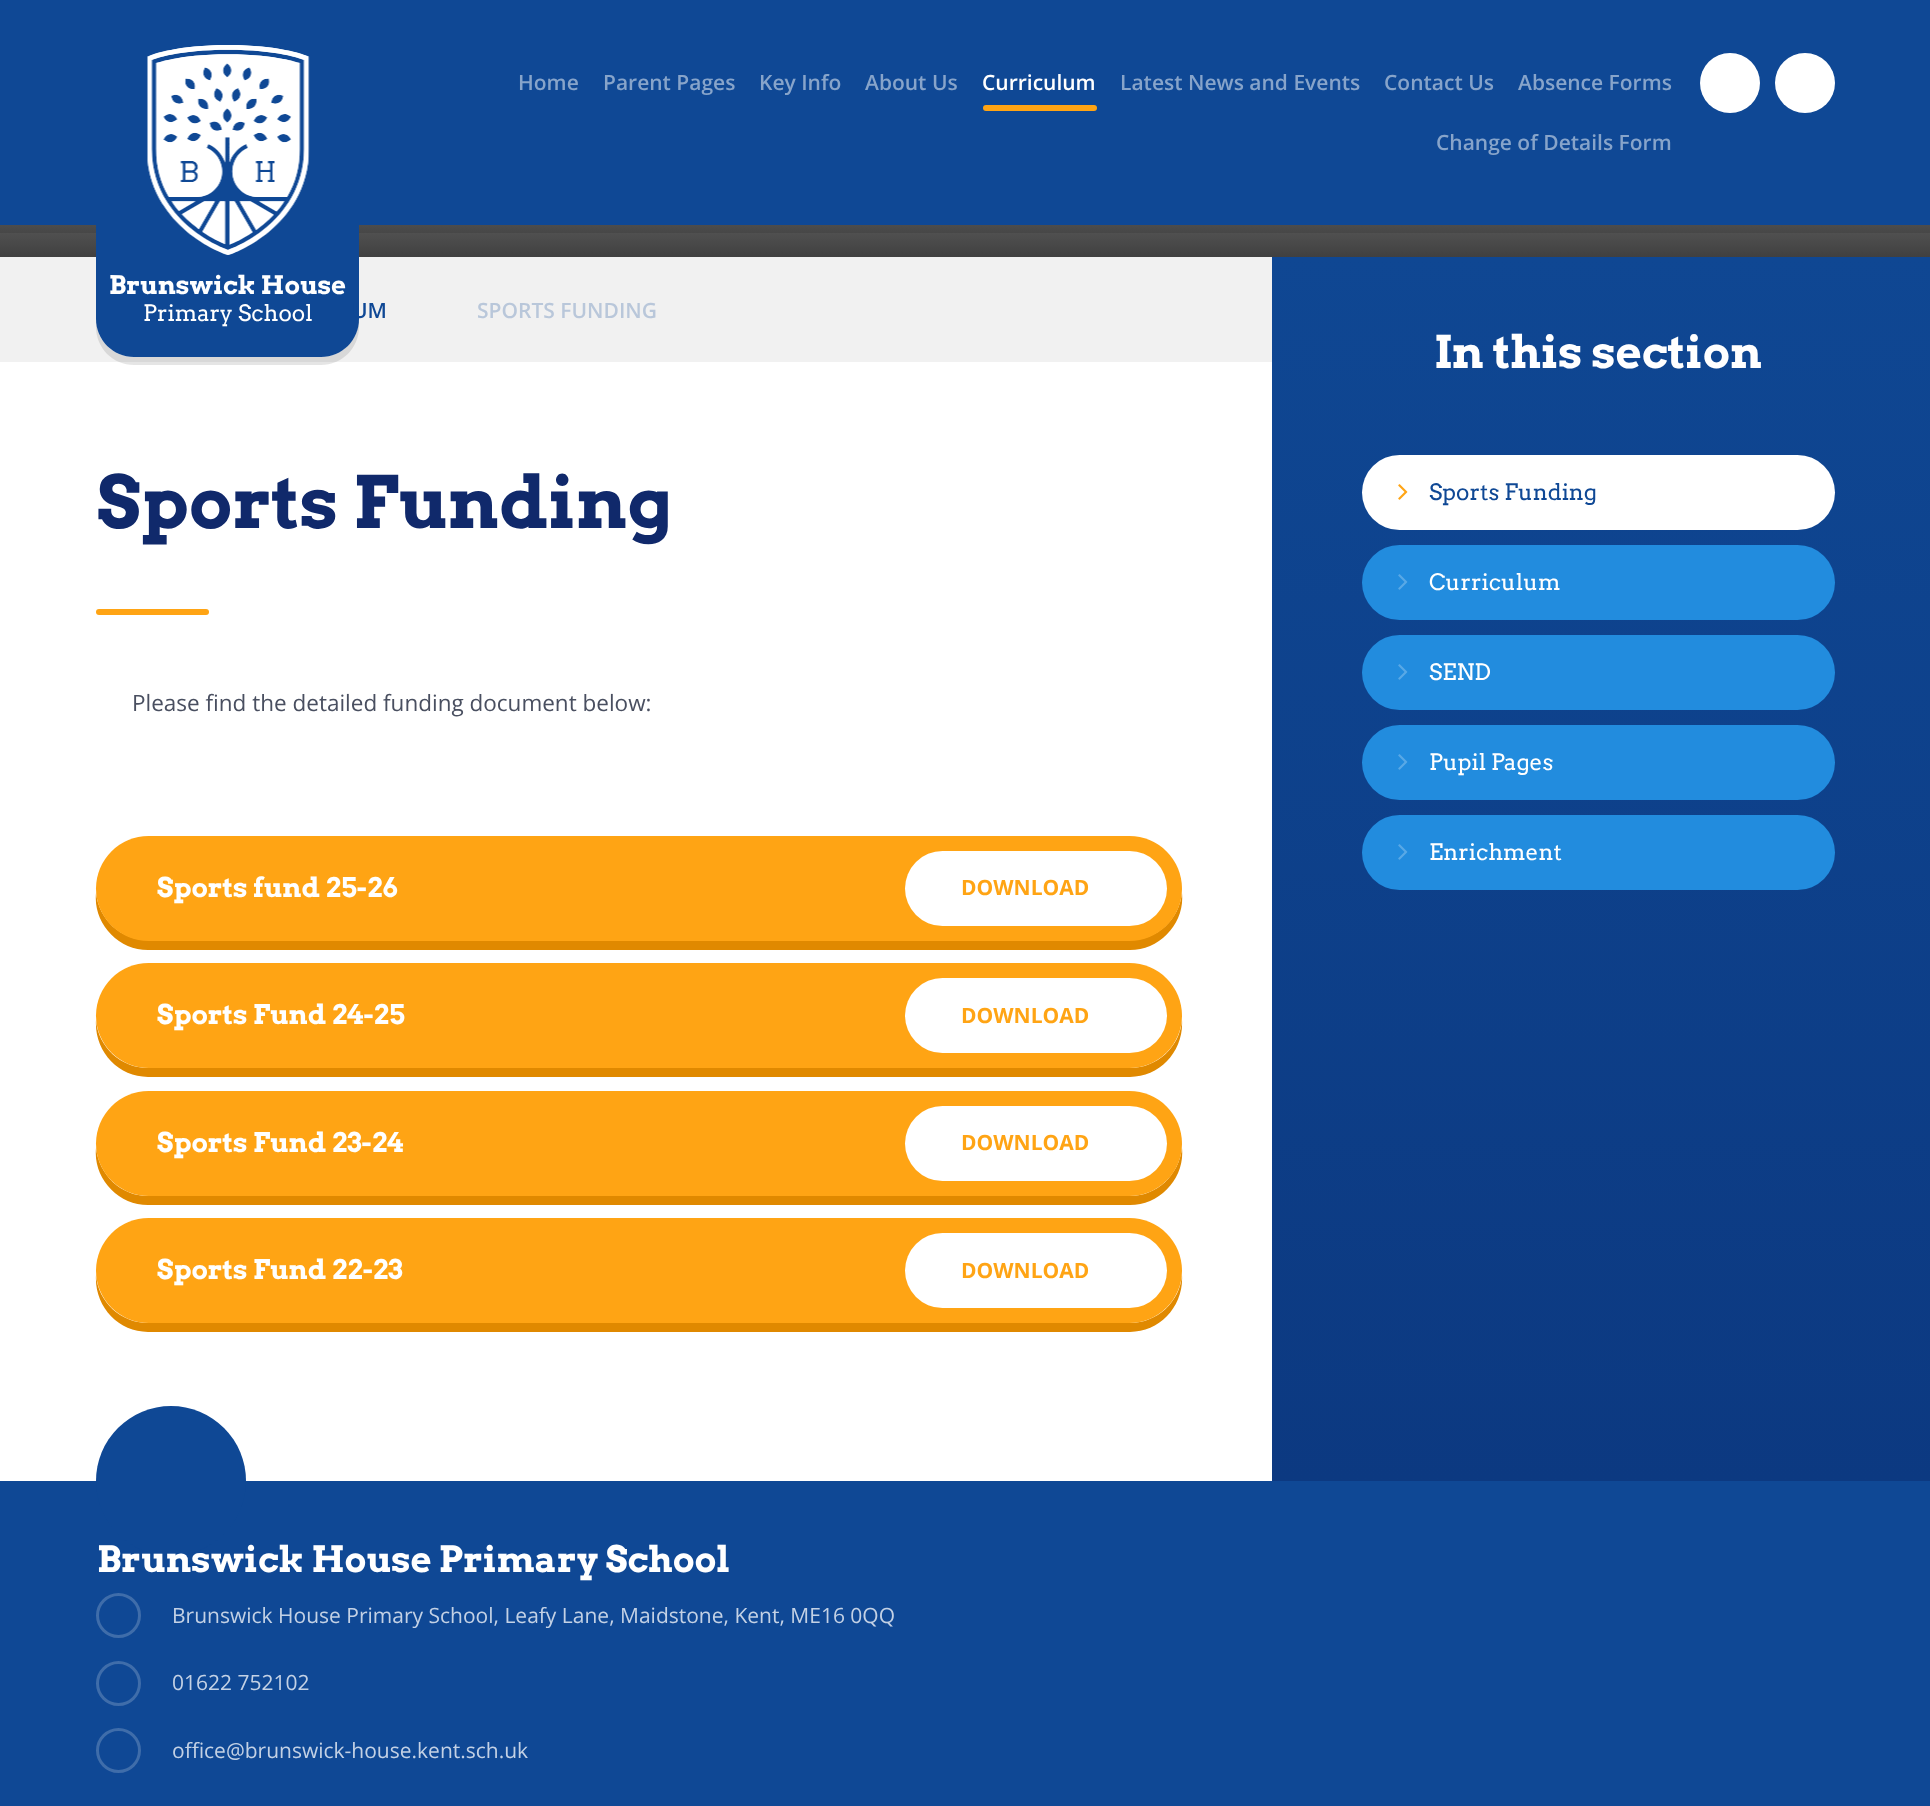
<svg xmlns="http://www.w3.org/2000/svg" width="1930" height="1806">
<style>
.a{font:600 21px Open Sans;fill:#87a4ca}
.b{font:600 21px Open Sans;fill:#fff}
.c{font:bold 25.5px Arvo;fill:#fff}
.d{font:22.5px Arvo;fill:#fff}
.e{font:600 21px Open Sans;fill:#0f4895}
.f{font:600 21px Open Sans;fill:#b9c7da}
.g{font:bold 72px Arvo;fill:#10296b}
.h{font:22.5px Open Sans;fill:#494f60}
.i{font:bold 27px Arvo;fill:#fff}
.j{font:bold 21px Open Sans;fill:#ffa414}
.k{font:bold 45px Arvo;fill:#fff}
.l{font:22.5px Arvo;fill:#0f4895}
.m{font:bold 36px Arvo;fill:#fff}
.n{font:21px Open Sans;fill:#c3d1e5}
</style>
<defs>
<linearGradient id="g1" gradientUnits="userSpaceOnUse" x1="965" y1="-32" x2="965" y2="257"><stop offset="0" stop-color="#fff"/><stop offset="1" stop-color="#404040"/></linearGradient>
<linearGradient id="g2" gradientUnits="userSpaceOnUse" x1="1553" y1="257" x2="1553" y2="1481"><stop offset="0" stop-color="#0f4793"/><stop offset="1" stop-color="#0c3981"/></linearGradient>
<linearGradient id="g3" gradientUnits="userSpaceOnUse" x1="1883" y1="257" x2="1883" y2="1481"><stop offset="0" stop-color="#0f4793"/><stop offset="1" stop-color="#0c3981"/></linearGradient>
</defs>
<rect width="100%" height="100%" fill="#fff"/>
<path fill="url(#g1)" d="M0 225h1930v32H0z"/>
<path fill="#0000001a" d="M0 225v8h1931v-225h-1v217z"/>
<path fill="#0f4895" d="M0 0h1930v225H0z"/>
<rect fill="#ffa414" x="983" y="105" width="114" height="6" rx="3"/>
<circle fill="#fff" cx="1730" cy="83" r="30"/>
<circle fill="#fff" cx="1805" cy="83" r="30"/>
<path fill="#f1f1f1" d="M0 257h1272v105H0z"/>
<path fill="#0000001a" d="M96 320v7c0 21 17 38 38 38h187c21 0 38-17 38-38v-274h-1v267c0 20-16 37-37 37h-187c-21 0-38-17-38-37z"/>
<path fill="#0f4895" d="M96 45h263v274c0 21-17 38-38 38h-187c-21 0-38-17-38-38z"/>
<image href="1.png" x="147" y="45" width="163" height="210"/>
<rect fill="#ffa414" x="96" y="609" width="113" height="6" rx="3"/>
<path fill="#e08900" d="M96 893c-3 30 22 57 52 57h982c30 0 55-27 52-57c-3 27-25 47-52 47h-982c-27 0-49-20-52-47z"/>
<rect fill="#ffa414" x="96" y="836" width="1086" height="105" rx="52.5"/>
<rect fill="#fff" x="905" y="851" width="262" height="75" rx="37.5"/>
<path fill="#e08900" d="M96 1020c-2 31 22 57 52 57h982c30 0 54-26 52-57c-2 27-25 48-52 48h-982c-27 0-50-21-52-48z"/>
<rect fill="#ffa414" x="96" y="963" width="1086" height="105" rx="52.5"/>
<rect fill="#fff" x="905" y="978" width="262" height="75" rx="37.5"/>
<path fill="#e08900" d="M96 1148c-3 30 22 57 52 57h982c30 0 55-27 52-57c-3 27-25 48-52 48h-982c-27 0-49-21-52-48z"/>
<rect fill="#ffa414" x="96" y="1091" width="1086" height="105" rx="52.5"/>
<rect fill="#fff" x="905" y="1106" width="262" height="75" rx="37.5"/>
<path fill="#e08900" d="M96 1275c-2 31 22 57 52 57h982c30 0 54-26 52-57c-2 27-25 48-52 48h-982c-27 0-50-21-52-48z"/>
<rect fill="#ffa414" x="96" y="1218" width="1086" height="105" rx="52.5"/>
<rect fill="#fff" x="905" y="1233" width="262" height="75" rx="37.5"/>
<path fill="url(#g2)" d="M1272 257h563v1224H1272z"/>
<path fill="url(#g3)" d="M1835 257h95v1224H1835z"/>
<rect fill="#fff" x="1362" y="455" width="473" height="75" rx="37.5"/>
<image href="2.png" x="1398" y="484" width="10" height="16"/>
<rect fill="#228cde" x="1362" y="545" width="473" height="75" rx="37.5"/>
<image href="3.png" x="1398" y="574" width="10" height="16"/>
<rect fill="#228cde" x="1362" y="635" width="473" height="75" rx="37.5"/>
<image href="3.png" x="1398" y="664" width="10" height="16"/>
<rect fill="#228cde" x="1362" y="725" width="473" height="75" rx="37.5"/>
<image href="3.png" x="1398" y="754" width="10" height="16"/>
<rect fill="#228cde" x="1362" y="815" width="473" height="75" rx="37.5"/>
<image href="3.png" x="1398" y="844" width="10" height="16"/>
<path fill="#0f4895" d="M0 1481h1930v325H0z"/>
<circle fill="#0f4895" cx="171" cy="1481" r="75"/>
<circle fill="none" stroke="#3f6daa" stroke-width="3" cx="118.5" cy="1615.5" r="21"/>
<circle fill="none" stroke="#3f6daa" stroke-width="3" cx="118.5" cy="1683.5" r="21"/>
<circle fill="none" stroke="#3f6daa" stroke-width="3" cx="118.5" cy="1750.5" r="21"/>
<text class="a" x="518" y="90">Home</text>
<text class="a" x="603" y="90">Parent Pages</text>
<text class="a" x="759" y="90">Key Info</text>
<text class="a" x="865" y="90">About Us</text>
<text class="b" x="982" y="90">Curriculum</text>
<text class="a" x="1120" y="90">Latest News and Events</text>
<text class="a" x="1384" y="90">Contact Us</text>
<text class="a" x="1518" y="90">Absence Forms</text>
<text class="a" x="1436" y="150">Change of Details Form</text>
<text class="c" x="109" y="294">Brunswick House</text>
<text class="d" x="143" y="321">Primary School</text>
<text class="e" x="352" y="318">UM</text>
<text class="f" x="477" y="318">SPORTS FUNDING</text>
<text class="g" x="97" y="528">Sports Funding</text>
<text class="h" x="132" y="711">Please find the detailed funding document below:</text>
<text class="i" x="157" y="897">Sports fund 25-26</text>
<text class="j" x="961" y="895">DOWNLOAD</text>
<text class="i" x="157" y="1024">Sports Fund 24-25</text>
<text class="j" x="961" y="1023">DOWNLOAD</text>
<text class="i" x="157" y="1152">Sports Fund 23-24</text>
<text class="j" x="961" y="1150">DOWNLOAD</text>
<text class="i" x="157" y="1279">Sports Fund 22-23</text>
<text class="j" x="961" y="1278">DOWNLOAD</text>
<text class="k" x="1434" y="368">In this section</text>
<text class="l" x="1429" y="500">Sports Funding</text>
<text class="d" x="1429" y="590">Curriculum</text>
<text class="d" x="1429" y="680">SEND</text>
<text class="d" x="1429" y="770">Pupil Pages</text>
<text class="d" x="1429" y="860">Enrichment</text>
<text class="m" x="97" y="1572">Brunswick House Primary School</text>
<text class="n" x="172" y="1623">Brunswick House Primary School, Leafy Lane, Maidstone, Kent, ME16 0QQ</text>
<text class="n" x="172" y="1690">01622 752102</text>
<text class="n" x="172" y="1758">office@brunswick-house.kent.sch.uk</text>
</svg>
